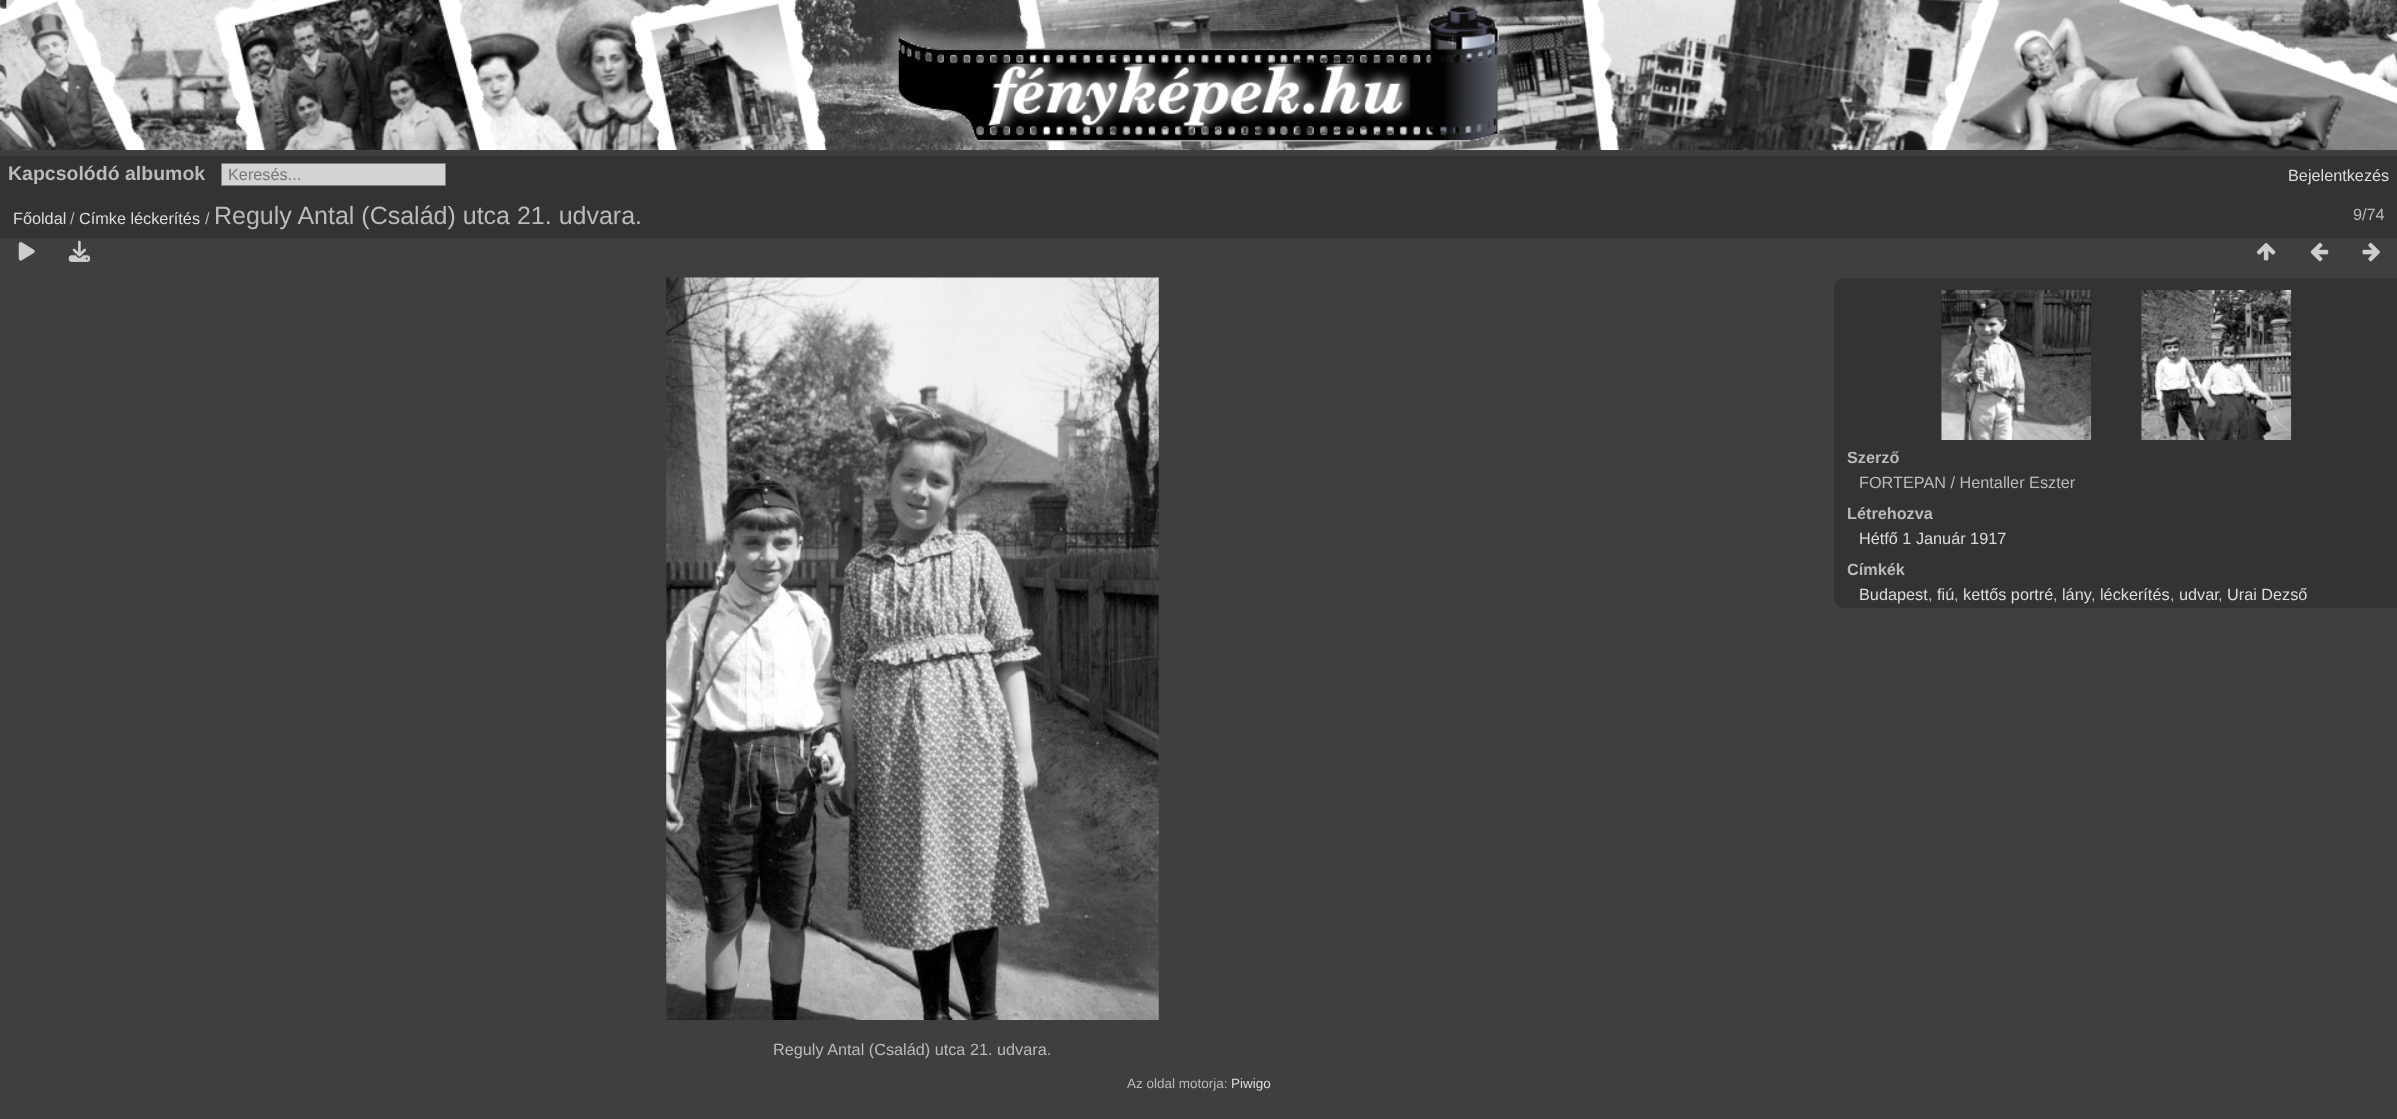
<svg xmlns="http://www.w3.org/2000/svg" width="2397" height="1119">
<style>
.a{font:bold 19.5px Liberation Sans;fill:#bbb}
.b{font:16.25px Liberation Sans;fill:#757575}
.c{font:16.25px Liberation Sans;fill:#ddd}
.d{font:16.25px Liberation Sans;fill:#bbb}
.e{font:25px Liberation Sans;fill:#bbb}
.f{font:bold 16.25px Liberation Sans;fill:#bbb}
.g{font:13.5px Liberation Sans;fill:#bbb}
.h{font:13.5px Liberation Sans;fill:#ddd}
</style>
<rect width="100%" height="100%" fill="#3f3f3f"/>
<path fill="#d4d4d4" d="M495 139h1067v11H495z"/>
<image href="1.png" x="0" y="0" width="2397" height="150"/>
<path fill="#333" d="M0 156h2397v82H0z"/>
<path fill="#d3d3d3" stroke="#808080" d="M221.5 163.5h224v22H221.5z"/>
<image href="2.png" x="18" y="242" width="17" height="19"/>
<image href="3.png" x="68" y="240" width="22" height="22"/>
<image href="4.png" x="2256" y="243" width="20" height="18"/>
<image href="5.png" x="2310" y="242" width="19" height="20"/>
<image href="6.png" x="2362" y="242" width="18" height="20"/>
<path fill="#333" d="M1844 278h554v330h-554c-5.5 0-10-4.5-10-10v-310c0-5.5 4.5-10 10-10z"/>
<image href="7.png" x="1941" y="290" width="151" height="150"/>
<image href="8.png" x="2141" y="290" width="151" height="150"/>
<image href="9.png" x="666" y="277" width="493" height="743"/>
<text class="a" x="8" y="180">Kapcsolódó albumok</text>
<text class="b" x="228" y="180">Keresés...</text>
<text class="c" x="2288" y="181">Bejelentkezés</text>
<text class="c" x="13" y="224">Főoldal</text>
<text class="d" x="70" y="224">/</text>
<text class="c" x="79" y="224">Címke léckerítés</text>
<text class="d" x="205" y="224">/</text>
<text class="e" x="214" y="224">Reguly Antal (Család) utca 21. udvara.</text>
<text class="d" x="2353" y="220">9/74</text>
<text class="f" x="1847" y="463">Szerző</text>
<text class="d" x="1859" y="488">FORTEPAN / Hentaller Eszter</text>
<text class="f" x="1847" y="519">Létrehozva</text>
<text class="c" x="1859" y="544">Hétfő 1 Január 1917</text>
<text class="f" x="1847" y="575">Címkék</text>
<text class="c" x="1859" y="600">Budapest</text>
<text class="d" x="1928" y="600">,</text>
<text class="c" x="1937" y="600">fiú</text>
<text class="d" x="1954" y="600">,</text>
<text class="c" x="1963" y="600">kettős portré</text>
<text class="d" x="2053" y="600">,</text>
<text class="c" x="2062" y="600">lány</text>
<text class="d" x="2091" y="600">,</text>
<text class="c" x="2100" y="600">léckerítés</text>
<text class="d" x="2170" y="600">,</text>
<text class="c" x="2179" y="600">udvar</text>
<text class="d" x="2218" y="600">,</text>
<text class="c" x="2227" y="600">Urai Dezső</text>
<text class="d" x="773" y="1055">Reguly Antal (Család) utca 21. udvara.</text>
<text class="g" x="1127" y="1088">Az oldal motorja:</text>
<text class="h" x="1231" y="1088">Piwigo</text>
</svg>
